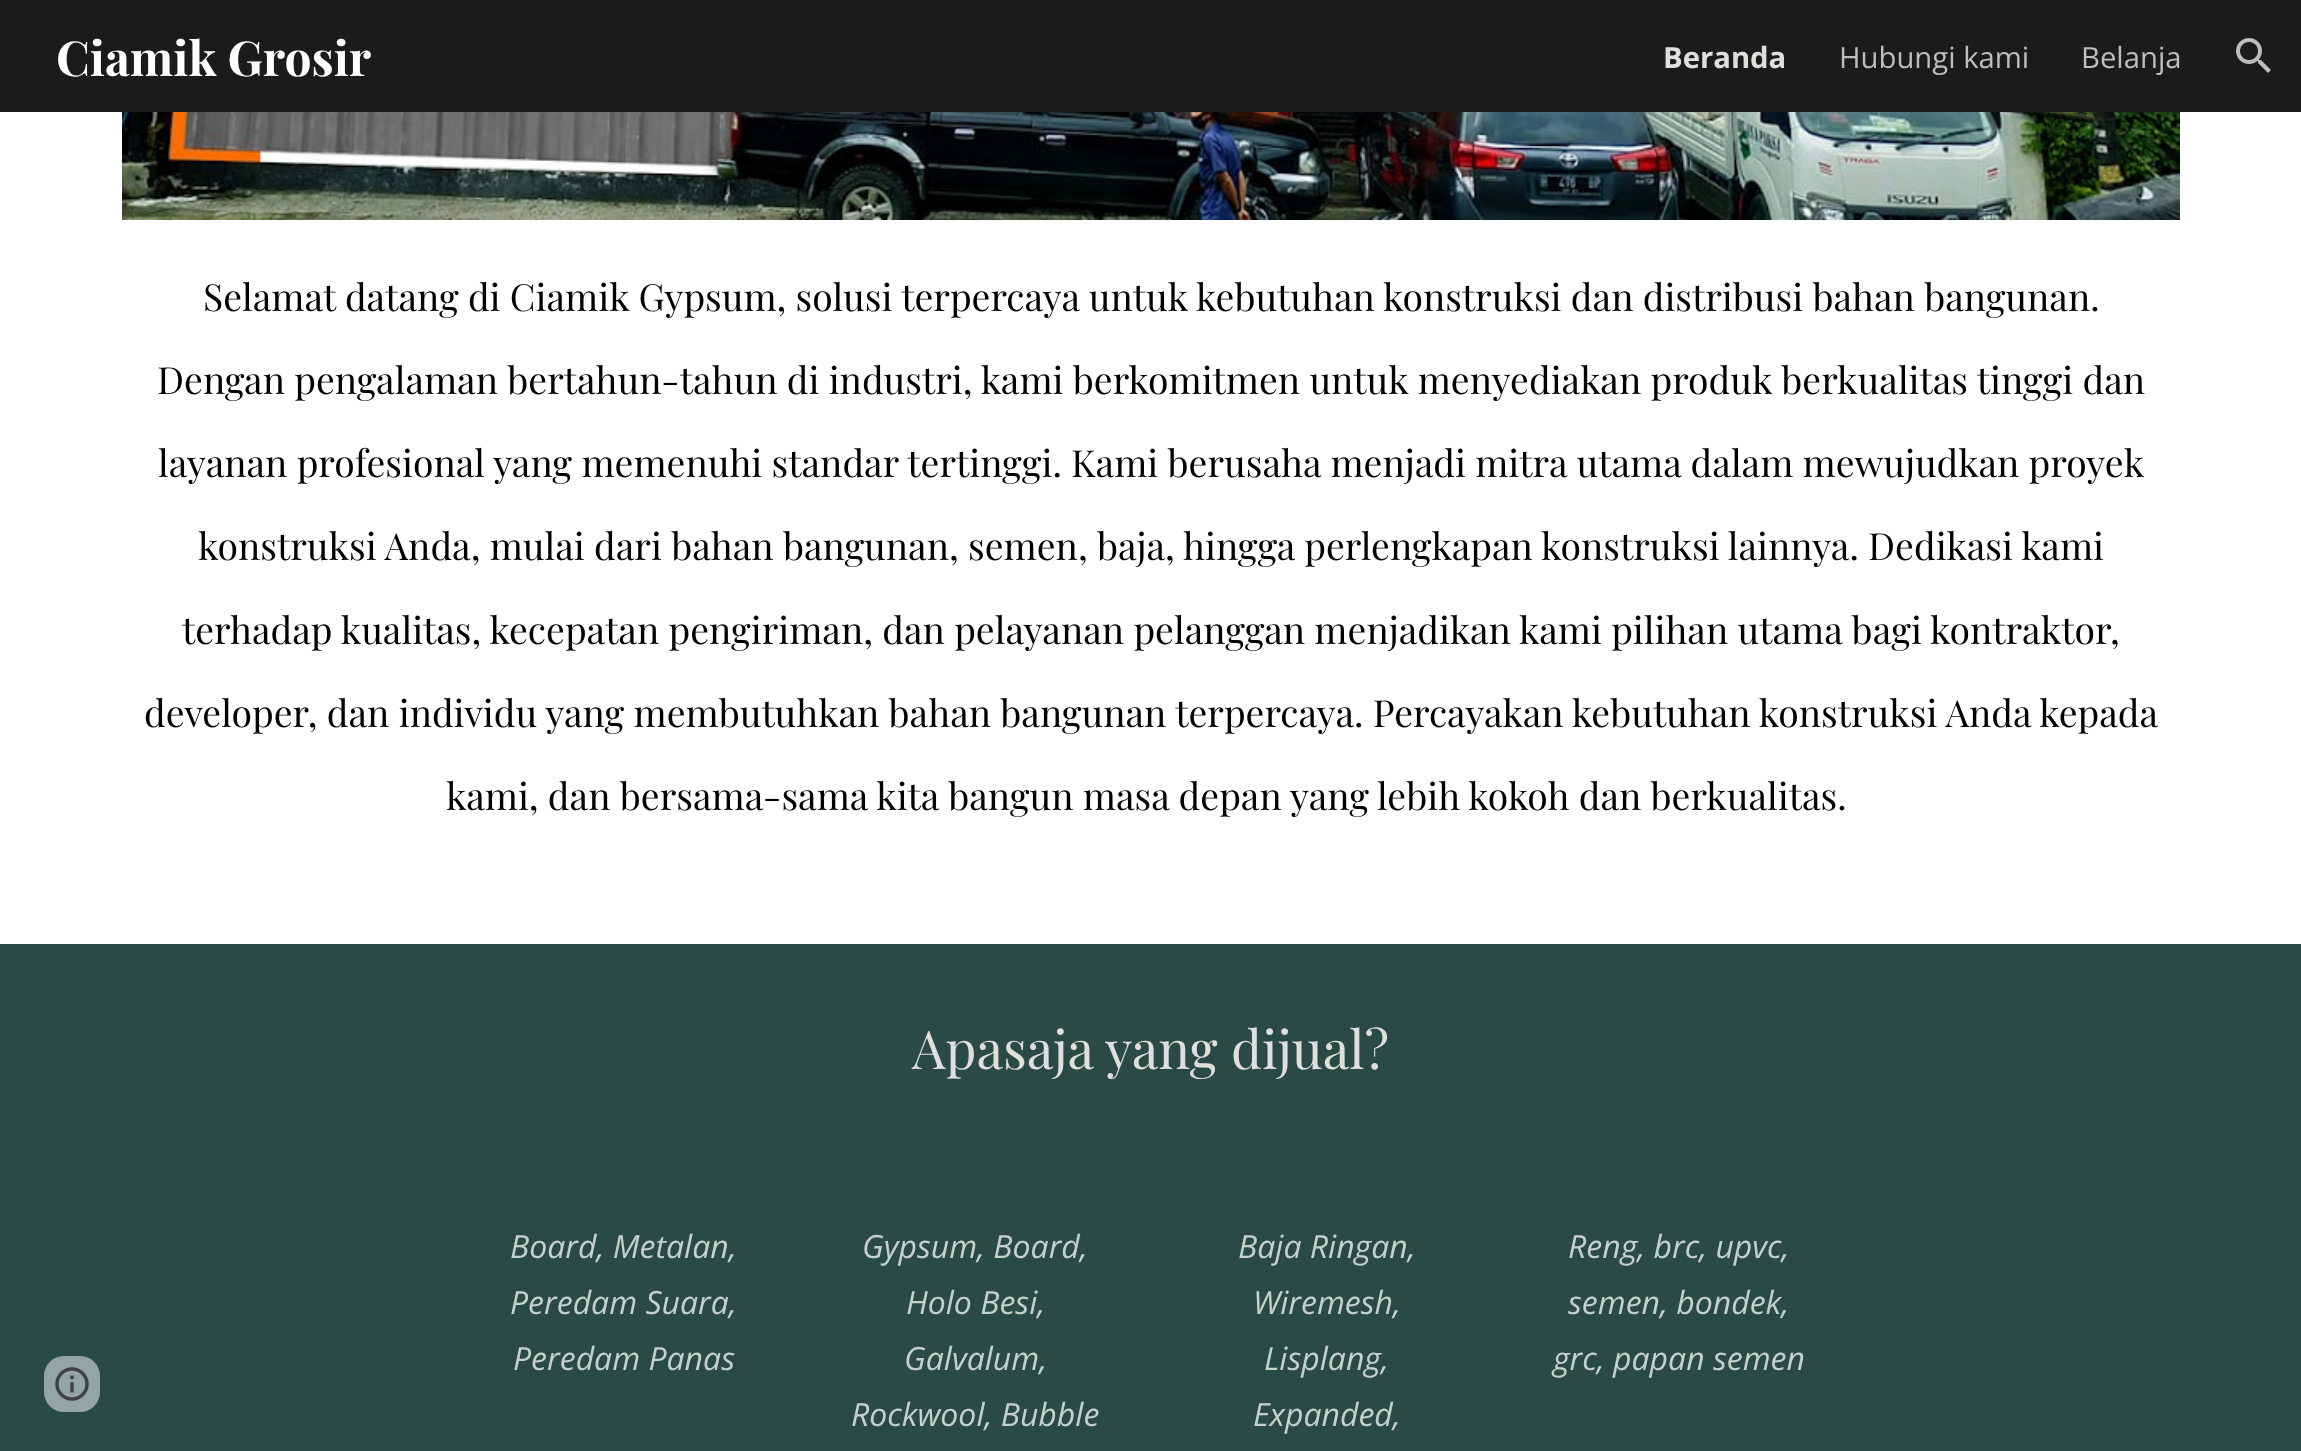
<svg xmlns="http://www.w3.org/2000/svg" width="2301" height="1451">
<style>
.a{font:bold 48px Playfair Display;fill:#fff}
.b{font:bold 29.25px Open Sans;fill:#e1dfdb}
.c{font:29.25px Open Sans;fill:#bdbdbd}
.d{font:37.33px Playfair Display;fill:#000}
.e{font:53.25px Playfair Display;fill:#e1dfdb}
.f{font:italic 32px Open Sans;fill:#c4d2ca}
</style>
<rect width="100%" height="100%" fill="#fff"/>
<path fill="#1b1b1b" d="M0 0h2301v112H0z"/>
<image href="1.png" x="2236" y="38" width="35" height="35"/>
<path fill="#2a4a46" d="M0 944h2301v507H0z"/>
<rect fill="#95a5a3" x="44" y="1356" width="56" height="56" rx="20"/>
<image href="2.png" x="55" y="1367" width="34" height="34"/>
<image href="3.png" x="122" y="112" width="2058" height="108"/>
<text class="a" x="56" y="76">Ciamik Grosir</text>
<text class="b" x="1663" y="68">Beranda</text>
<text class="c" x="1839" y="68">Hubungi kami</text>
<text class="c" x="2081" y="68">Belanja</text>
<text class="d" x="203" y="311">Selamat datang di Ciamik Gypsum, solusi terpercaya untuk kebutuhan konstruksi dan distribusi bahan bangunan.</text>
<text class="d" x="157" y="394">Dengan pengalaman bertahun-tahun di industri, kami berkomitmen untuk menyediakan produk berkualitas tinggi dan</text>
<text class="d" x="158" y="477">layanan profesional yang memenuhi standar tertinggi. Kami berusaha menjadi mitra utama dalam mewujudkan proyek</text>
<text class="d" x="198" y="560">konstruksi Anda, mulai dari bahan bangunan, semen, baja, hingga perlengkapan konstruksi lainnya. Dedikasi kami</text>
<text class="d" x="182" y="644">terhadap kualitas, kecepatan pengiriman, dan pelayanan pelanggan menjadikan kami pilihan utama bagi kontraktor,</text>
<text class="d" x="144" y="727">developer, dan individu yang membutuhkan bahan bangunan terpercaya. Percayakan kebutuhan konstruksi Anda kepada</text>
<text class="d" x="446" y="810">kami, dan bersama-sama kita bangun masa depan yang lebih kokoh dan berkualitas.</text>
<text class="e" x="912" y="1069">Apasaja yang dijual?</text>
<text class="f" x="510" y="1258">Board, Metalan,</text>
<text class="f" x="510" y="1314">Peredam Suara,</text>
<text class="f" x="513" y="1370">Peredam Panas</text>
<text class="f" x="862" y="1258">Gypsum, Board,</text>
<text class="f" x="906" y="1314">Holo Besi,</text>
<text class="f" x="904" y="1370">Galvalum,</text>
<text class="f" x="851" y="1426">Rockwool, Bubble</text>
<text class="f" x="1238" y="1258">Baja Ringan,</text>
<text class="f" x="1253" y="1314">Wiremesh,</text>
<text class="f" x="1264" y="1370">Lisplang,</text>
<text class="f" x="1253" y="1426">Expanded,</text>
<text class="f" x="1568" y="1258">Reng, brc, upvc,</text>
<text class="f" x="1568" y="1314">semen, bondek,</text>
<text class="f" x="1553" y="1370">grc, papan semen</text>
</svg>
